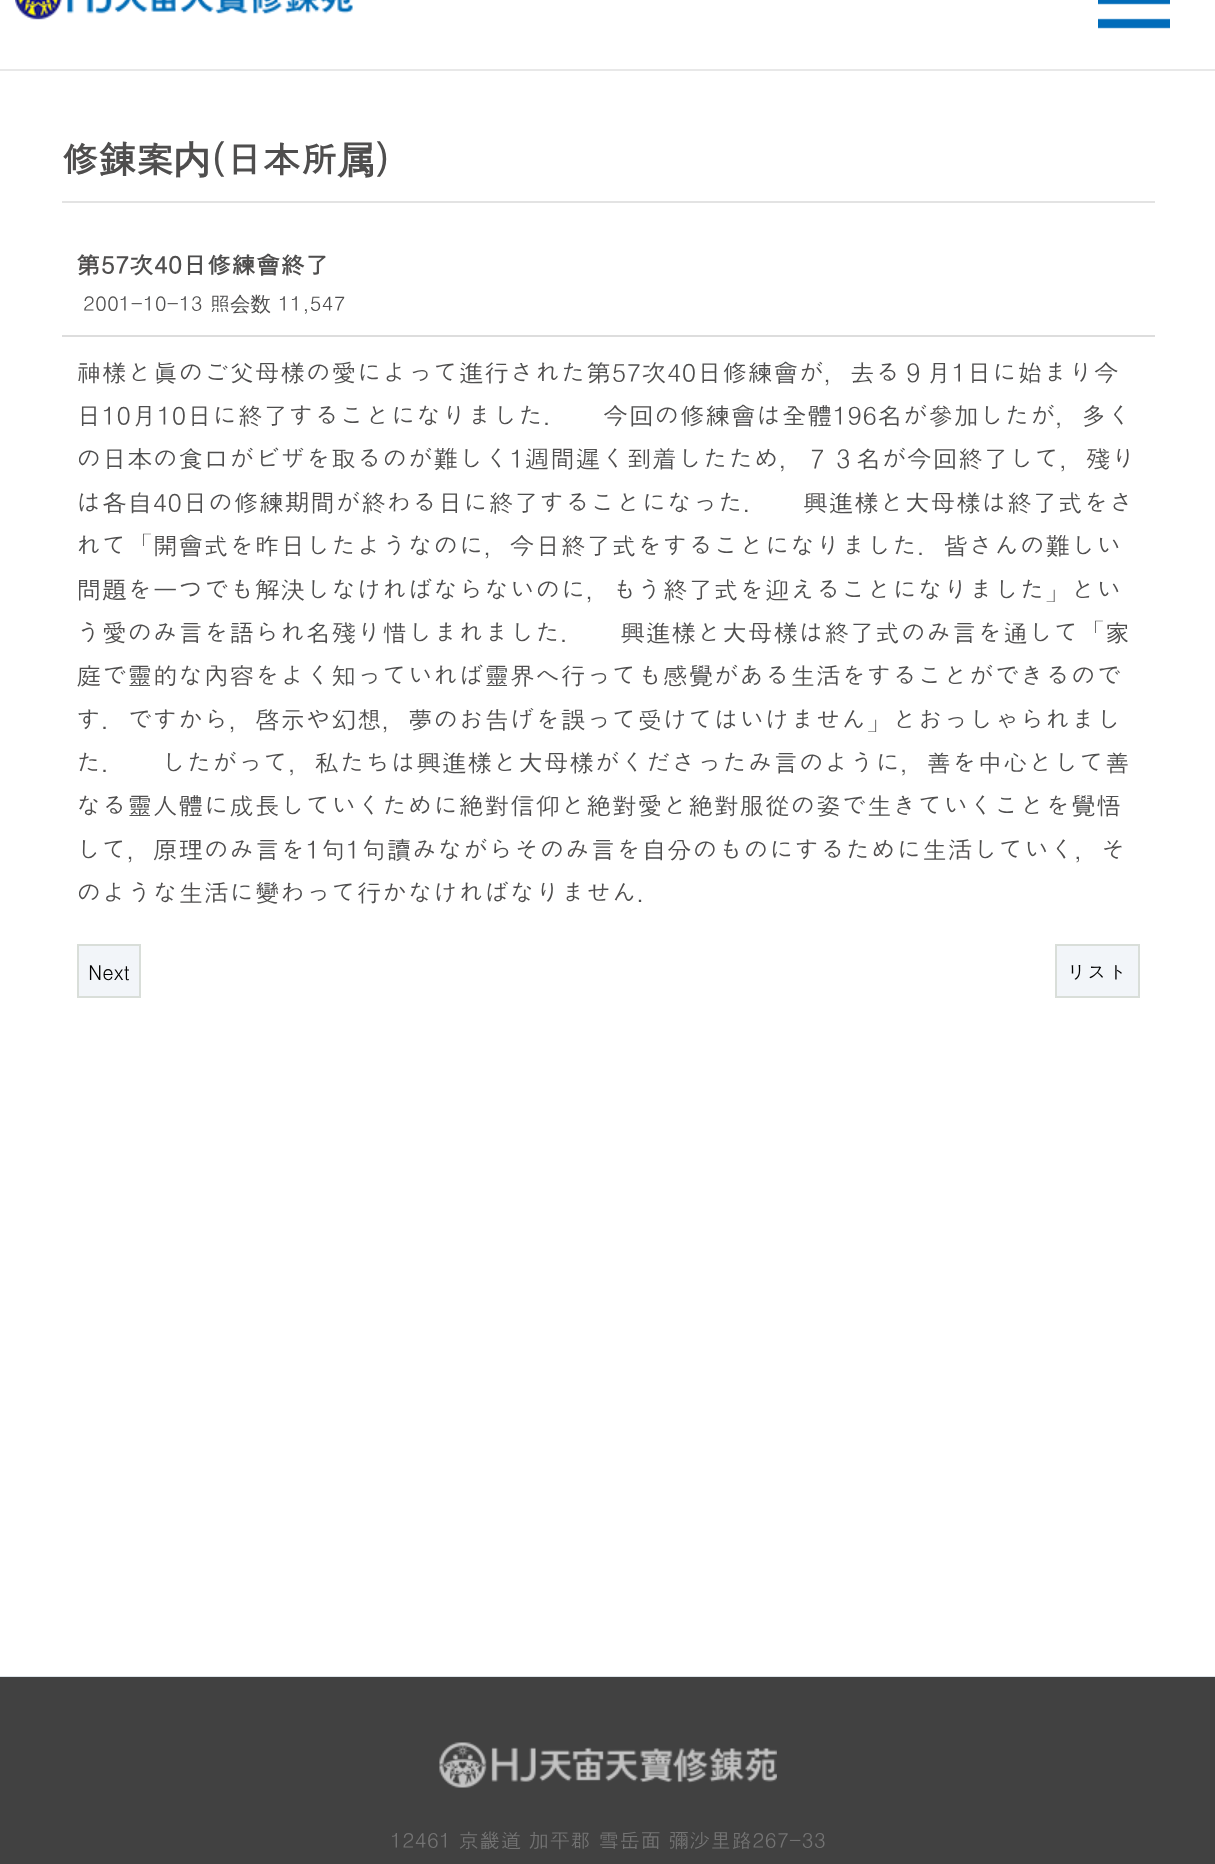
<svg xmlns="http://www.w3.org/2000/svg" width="1215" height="1864">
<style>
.a{font:bold 37.5px Dotum;fill:#4f4e4e}
.b{font:bold 37.5px WenQuanYi Zen Hei;fill:#4f4e4e}
.c{font:bold 24.5px Dotum;fill:#4f4e4e}
.d{font:20.5px Dotum;fill:#4f4e4e}
.e{font:500 20.5px WenQuanYi Zen Hei;fill:#4f4e4e}
.f{font:25.5px Dotum;fill:#4f4e4e}
.g{font:20.5px Dotum;fill:#000}
.h{font:21px Dotum;fill:#737373}
</style>
<rect width="100%" height="100%" fill="#fff"/>
<path fill="#e8e8e8" d="M0 69h1215v2H0z"/>
<image href="1.png" x="15" y="0" width="338" height="20"/>
<image href="2.png" x="1098" y="0" width="72" height="29"/>
<path fill="#e3e3e3" d="M62 201h1093v2H62z"/>
<path fill="#ddd" d="M62 335h1093v2H62z"/>
<path fill="#f2f5f9" stroke="#d9ded9" stroke-width="2" d="M78 945h62v52H78z"/>
<path fill="#f2f5f9" stroke="#d9ded9" stroke-width="2" d="M1056 945h83v52H1056z"/>
<path fill="#dde4e9" d="M0 1676h1215v1H0z"/>
<path fill="#414141" d="M0 1677h1215v187H0z"/>
<image href="3.png" x="439" y="1742" width="338" height="46"/>
<text class="a" x="61" y="173">修錬案</text>
<text class="b" x="173" y="173">内</text>
<text class="a" x="211" y="173">(日本所</text>
<text class="b" x="337" y="173">属</text>
<text class="a" x="375" y="173">)</text>
<text class="c" x="76" y="274">第57次40日修練會終了</text>
<text class="d" x="83" y="311">2001-10-13 照</text>
<text class="e" x="230" y="311">会数</text>
<text class="d" x="278" y="311">11,547</text>
<text class="f" x="76" y="382">神樣と眞のご父母樣の愛によって進行された第57次40日修練會が，去る９月1日に始まり今</text>
<text class="f" x="76" y="425">日10月10日に終了することになりました． 　今回の修練會は全體196名が參加したが，多く</text>
<text class="f" x="76" y="468">の日本の食口がビザを取るのが難しく1週間遲く到着したため，７３名が今回終了して，殘り</text>
<text class="f" x="76" y="512">は各自40日の修練期間が終わる日に終了することになった． 　興進樣と大母樣は終了式をさ</text>
<text class="f" x="76" y="555">れて「開會式を昨日したようなのに，今日終了式をすることになりました．皆さんの難しい</text>
<text class="f" x="76" y="599">問題を一つでも解決しなければならないのに，もう終了式を迎えることになりました」とい</text>
<text class="f" x="76" y="642">う愛のみ言を語られ名殘り惜しまれました． 　興進樣と大母樣は終了式のみ言を通して「家</text>
<text class="f" x="76" y="685">庭で靈的な內容をよく知っていれば靈界へ行っても感覺がある生活をすることができるので</text>
<text class="f" x="76" y="729">す．ですから，啓示や幻想，夢のお告げを誤って受けてはいけません」とおっしゃられまし</text>
<text class="f" x="76" y="772">た． 　したがって，私たちは興進樣と大母樣がくださったみ言のように，善を中心として善</text>
<text class="f" x="76" y="815">なる靈人體に成長していくために絶對信仰と絶對愛と絶對服從の姿で生きていくことを覺悟</text>
<text class="f" x="76" y="859">して，原理のみ言を1句1句讀みながらそのみ言を自分のものにするために生活していく，そ</text>
<text class="f" x="76" y="902">のような生活に變わって行かなければなりません．</text>
<text class="g" x="88" y="980">Next</text>
<text class="g" x="1066" y="980">リスト</text>
<text class="h" x="390" y="1848">12461 京畿道 加平郡 雪岳面 彌沙里路267-33</text>
</svg>
